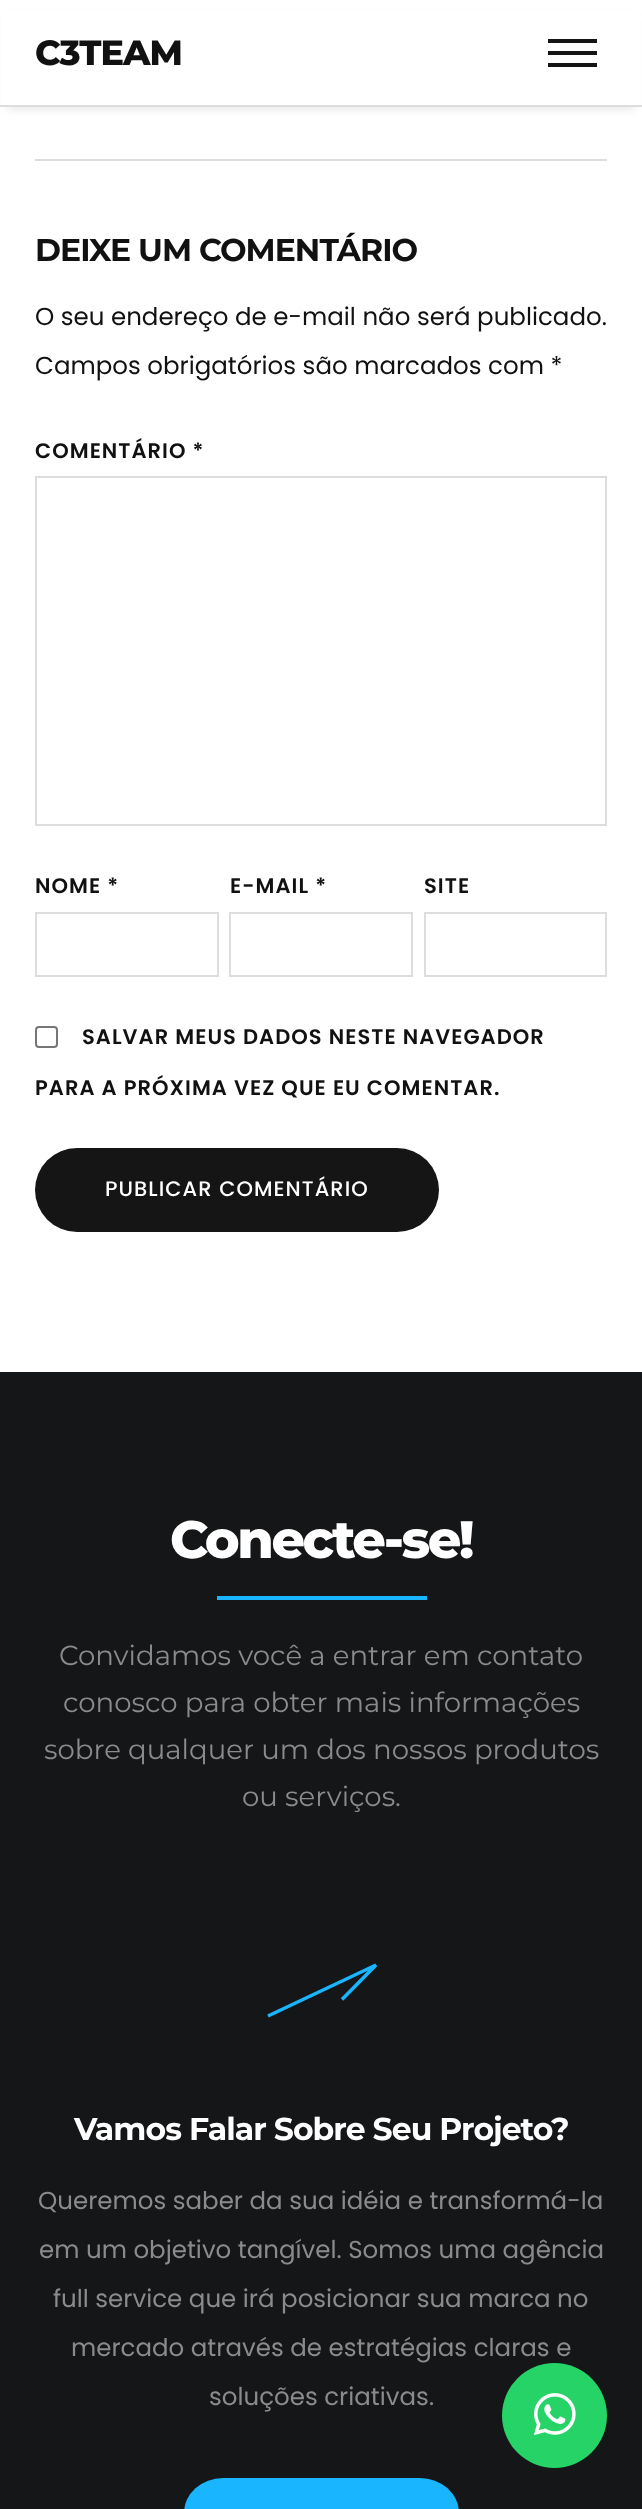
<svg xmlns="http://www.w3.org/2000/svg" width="642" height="2509">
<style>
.a{font:800 35px Montserrat;letter-spacing:-1px;fill:#111}
.b{font:bold 31.5px Montserrat;letter-spacing:-0.95px;fill:#111}
.c{font:24.5px Poppins;fill:#111}
.d{font:600 21px Poppins;letter-spacing:1.05px;fill:#111}
.e{font:500 21px Poppins;letter-spacing:1.05px;fill:#fff}
.f{font:800 52.5px Montserrat;letter-spacing:-2.6px;fill:#fff}
.g{font:27.6px Montserrat;fill:#8a8b8c}
.h{font:bold 31.5px Montserrat;letter-spacing:-0.95px;fill:#fff}
.i{font:24.5px Poppins;fill:#8a8b8c}
</style>
<rect width="100%" height="100%" fill="#fff"/>
<path fill="#0000001a" filter="blur(4.5px)" d="M7 16h628v93H7z"/>
<path fill="#fff" d="M1 10h640v95H1z"/>
<path fill="#ddd" d="M0 105h642v2H0z"/>
<path fill="#151515" d="M548 51h49v4H548z"/>
<path fill="#151515" d="M548 39h49v4H548z"/>
<path fill="#151515" d="M548 63h49v4H548z"/>
<path fill="#ddd" d="M35 159h572v2H35z"/>
<path fill="none" stroke="#ddd" stroke-width="2" d="M36 477h570v348H36z"/>
<path fill="none" stroke="#ddd" stroke-width="2" d="M36 913h182v63H36z"/>
<path fill="none" stroke="#ddd" stroke-width="2" d="M230 913h182v63H230z"/>
<path fill="none" stroke="#ddd" stroke-width="2" d="M425 913h181v63H425z"/>
<rect fill="none" stroke="#767676" stroke-width="2" x="36" y="1027" width="21" height="20" rx="3"/>
<rect fill="#151515" x="35" y="1148" width="404" height="84" rx="42"/>
<path fill="#141618" d="M0 1372h642v1137H0z"/>
<path fill="#19b5fe" d="M217 1596h210v4H217z"/>
<path fill="none" stroke="#19b5fe" stroke-width="3.5" stroke-linejoin="bevel" d="M268 2016l108-51l-34 34.5"/>
<rect fill="#19b5fe" x="184" y="2478" width="275" height="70" rx="39"/>
<circle fill="#25d366" cx="554.5" cy="2415.5" r="52.5"/>
<image href="1.png" x="534" y="2393" width="42" height="42"/>
<text class="a" x="35" y="65">C3TEAM</text>
<text class="b" x="35" y="261">DEIXE UM COMENTÁRIO</text>
<text class="c" x="35" y="325">O seu endereço de e-mail não será publicado.</text>
<text class="c" x="35" y="374">Campos obrigatórios são marcados com *</text>
<text class="d" x="35" y="458">COMENTÁRIO *</text>
<text class="d" x="35" y="893">NOME *</text>
<text class="d" x="230" y="893">E-MAIL *</text>
<text class="d" x="424" y="893">SITE</text>
<text class="d" x="82" y="1044">SALVAR MEUS DADOS NESTE NAVEGADOR</text>
<text class="d" x="35" y="1095">PARA A PRÓXIMA VEZ QUE EU COMENTAR.</text>
<text class="e" x="105" y="1196">PUBLICAR COMENTÁRIO</text>
<text class="f" x="170" y="1558">Conecte-se!</text>
<text class="g" x="59" y="1665">Convidamos você a entrar em contato</text>
<text class="g" x="63" y="1712">conosco para obter mais informações</text>
<text class="g" x="44" y="1759">sobre qualquer um dos nossos produtos</text>
<text class="g" x="242" y="1806">ou serviços.</text>
<text class="h" x="74" y="2140">Vamos Falar Sobre Seu Projeto?</text>
<text class="i" x="38" y="2209">Queremos saber da sua idéia e transformá-la</text>
<text class="i" x="39" y="2258">em um objetivo tangível. Somos uma agência</text>
<text class="i" x="53" y="2307">full service que irá posicionar sua marca no</text>
<text class="i" x="71" y="2356">mercado através de estratégias claras e</text>
<text class="i" x="209" y="2405">soluções criativas.</text>
</svg>
